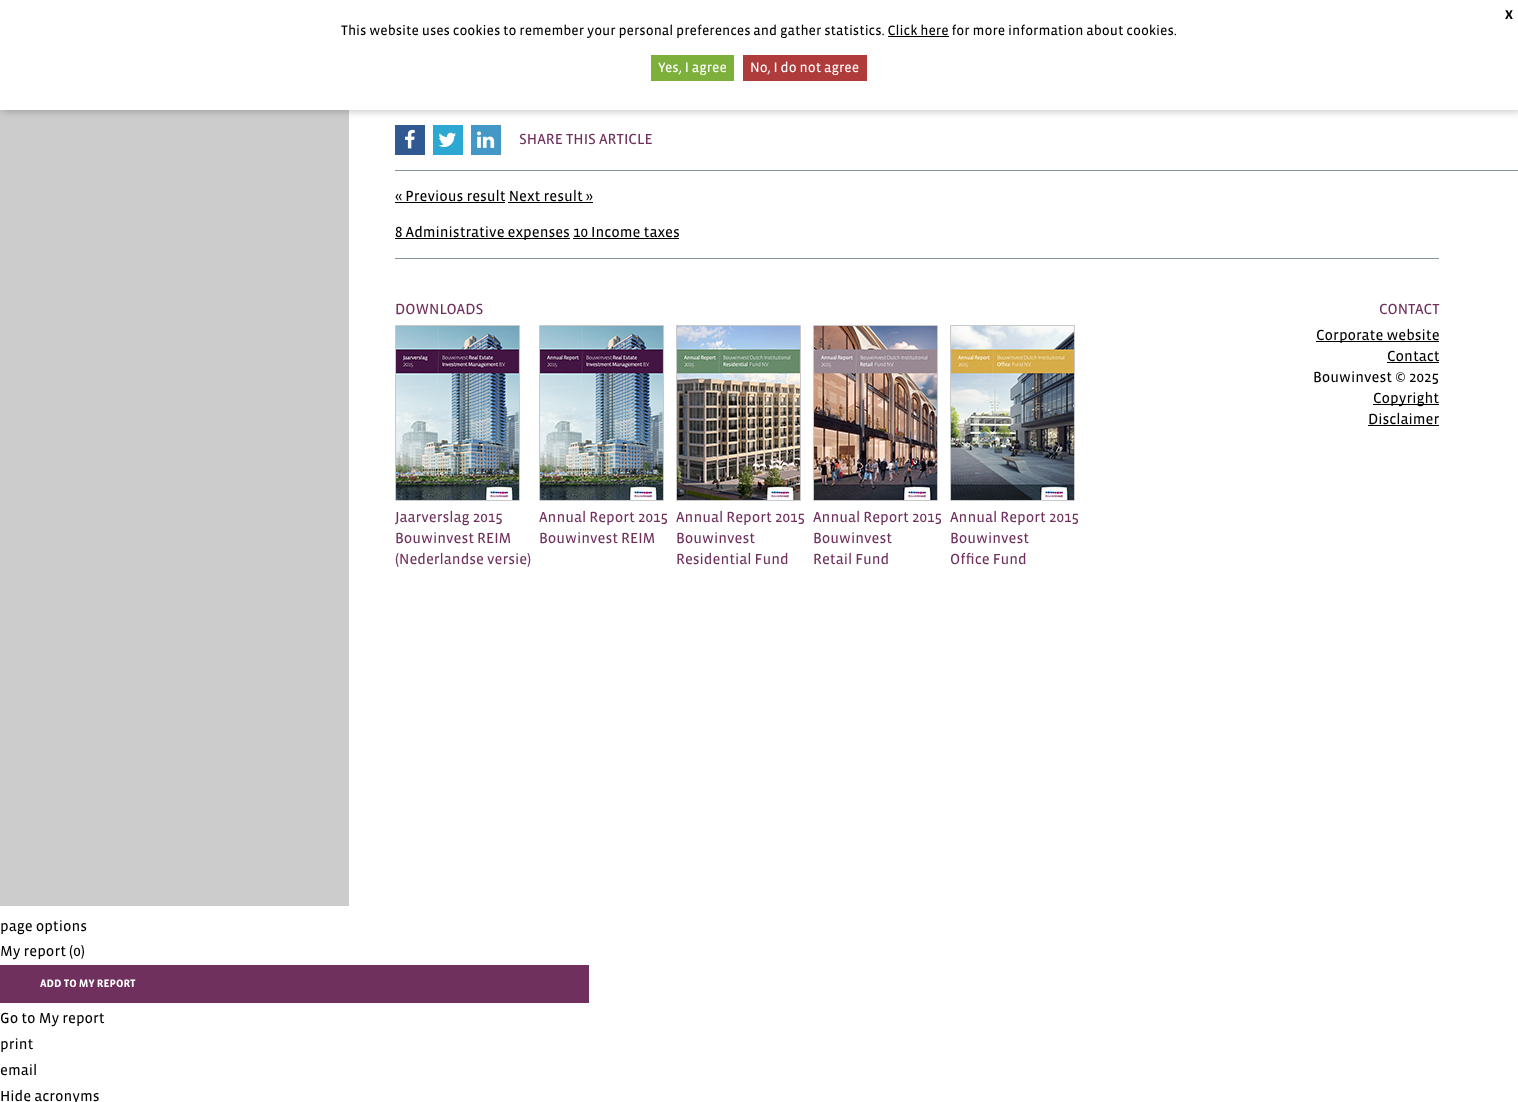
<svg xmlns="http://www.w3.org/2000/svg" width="1518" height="1102">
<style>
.a{font:bold 13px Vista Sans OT;fill:#000}
.b{font:14px Vista Sans OT;fill:#000}
.c{font:14px Vista Sans OT;fill:#fff}
.d{font:15px Vista Sans OT;fill:#70305d}
.e{font:15px Vista Sans OT;fill:#000}
.f{font:bold 11px Vista Sans OT;fill:#fff}
</style>
<rect width="100%" height="100%" fill="#fff"/>
<path fill="#ccc" d="M0 110h349v796H0z"/>
<path fill="#00000033" filter="blur(3.5px)" d="M2 2h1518v110H2z"/>
<path fill="#fff" d="M0 0h1518v110H0z"/>
<path fill="#000" d="M888 36h61v1H888z"/>
<path fill="#7daf3b" d="M651 55h83v26H651z"/>
<path fill="#af3b3b" d="M743 55h124v26H743z"/>
<path fill="#83929b" d="M395 170h1123v1H395z"/>
<path fill="#305891" d="M395 125h30v30H395z"/>
<image href="1.png" x="405" y="129" width="10" height="20"/>
<path fill="#2ca8d2" d="M433 125h30v30H433z"/>
<image href="2.png" x="438" y="132" width="18" height="15"/>
<path fill="#4498c8" d="M471 125h30v30H471z"/>
<image href="3.png" x="477" y="131" width="18" height="17"/>
<path fill="#000" d="M395 202h110v1H395z"/>
<path fill="#000" d="M508 202h85v1H508z"/>
<path fill="#000" d="M395 238h175v1H395z"/>
<path fill="#000" d="M573 238h106v1H573z"/>
<path fill="#83929b" d="M395 258h1044v1H395z"/>
<path fill="none" stroke="#c9c9c9" d="M395.5 325.5h124v175H395.5z"/>
<image href="4.png" x="396" y="326" width="123" height="174"/>
<path fill="none" stroke="#c9c9c9" d="M539.5 325.5h124v175H539.5z"/>
<image href="5.png" x="540" y="326" width="123" height="174"/>
<path fill="none" stroke="#c9c9c9" d="M676.5 325.5h124v175H676.5z"/>
<image href="6.png" x="677" y="326" width="123" height="174"/>
<path fill="none" stroke="#c9c9c9" d="M813.5 325.5h124v175H813.5z"/>
<image href="7.png" x="814" y="326" width="123" height="174"/>
<path fill="none" stroke="#c9c9c9" d="M950.5 325.5h124v175H950.5z"/>
<image href="8.png" x="951" y="326" width="123" height="174"/>
<path fill="#000" d="M1316 341h123v1H1316z"/>
<path fill="#000" d="M1387 362h52v1H1387z"/>
<path fill="#000" d="M1373 404h66v1H1373z"/>
<path fill="#000" d="M1368 425h71v1H1368z"/>
<path fill="#70305d" d="M0 965h589v38H0z"/>
<text class="a" x="1505" y="19">X</text>
<text class="b" x="341" y="35">This website uses cookies to remember your personal preferences and gather statistics. Click here for more information about cookies.</text>
<text class="c" x="658" y="72">Yes, I agree</text>
<text class="c" x="750" y="72">No, I do not agree</text>
<text class="d" x="519" y="144">SHARE THIS ARTICLE</text>
<text class="e" x="395" y="201">« Previous result Next result »</text>
<text class="e" x="395" y="237">8 Administrative expenses 10 Income taxes</text>
<text class="d" x="395" y="314">DOWNLOADS</text>
<text class="d" x="395" y="522">Jaarverslag 2015</text>
<text class="d" x="395" y="543">Bouwinvest REIM</text>
<text class="d" x="395" y="564">(Nederlandse versie)</text>
<text class="d" x="539" y="522">Annual Report 2015</text>
<text class="d" x="539" y="543">Bouwinvest REIM</text>
<text class="d" x="676" y="522">Annual Report 2015</text>
<text class="d" x="676" y="543">Bouwinvest</text>
<text class="d" x="676" y="564">Residential Fund</text>
<text class="d" x="813" y="522">Annual Report 2015</text>
<text class="d" x="813" y="543">Bouwinvest</text>
<text class="d" x="813" y="564">Retail Fund</text>
<text class="d" x="950" y="522">Annual Report 2015</text>
<text class="d" x="950" y="543">Bouwinvest</text>
<text class="d" x="950" y="564">Office Fund</text>
<text class="d" x="1379" y="314">CONTACT</text>
<text class="e" x="1316" y="340">Corporate website</text>
<text class="e" x="1387" y="361">Contact</text>
<text class="e" x="1313" y="382">Bouwinvest © 2025</text>
<text class="e" x="1373" y="403">Copyright</text>
<text class="e" x="1368" y="424">Disclaimer</text>
<text class="e" x="0" y="931">page options</text>
<text class="e" x="0" y="956">My report (0)</text>
<text class="f" x="40" y="987">ADD TO MY REPORT</text>
<text class="e" x="0" y="1023">Go to My report</text>
<text class="e" x="0" y="1049">print</text>
<text class="e" x="0" y="1075">email</text>
<text class="e" x="0" y="1101">Hide acronyms</text>
</svg>
